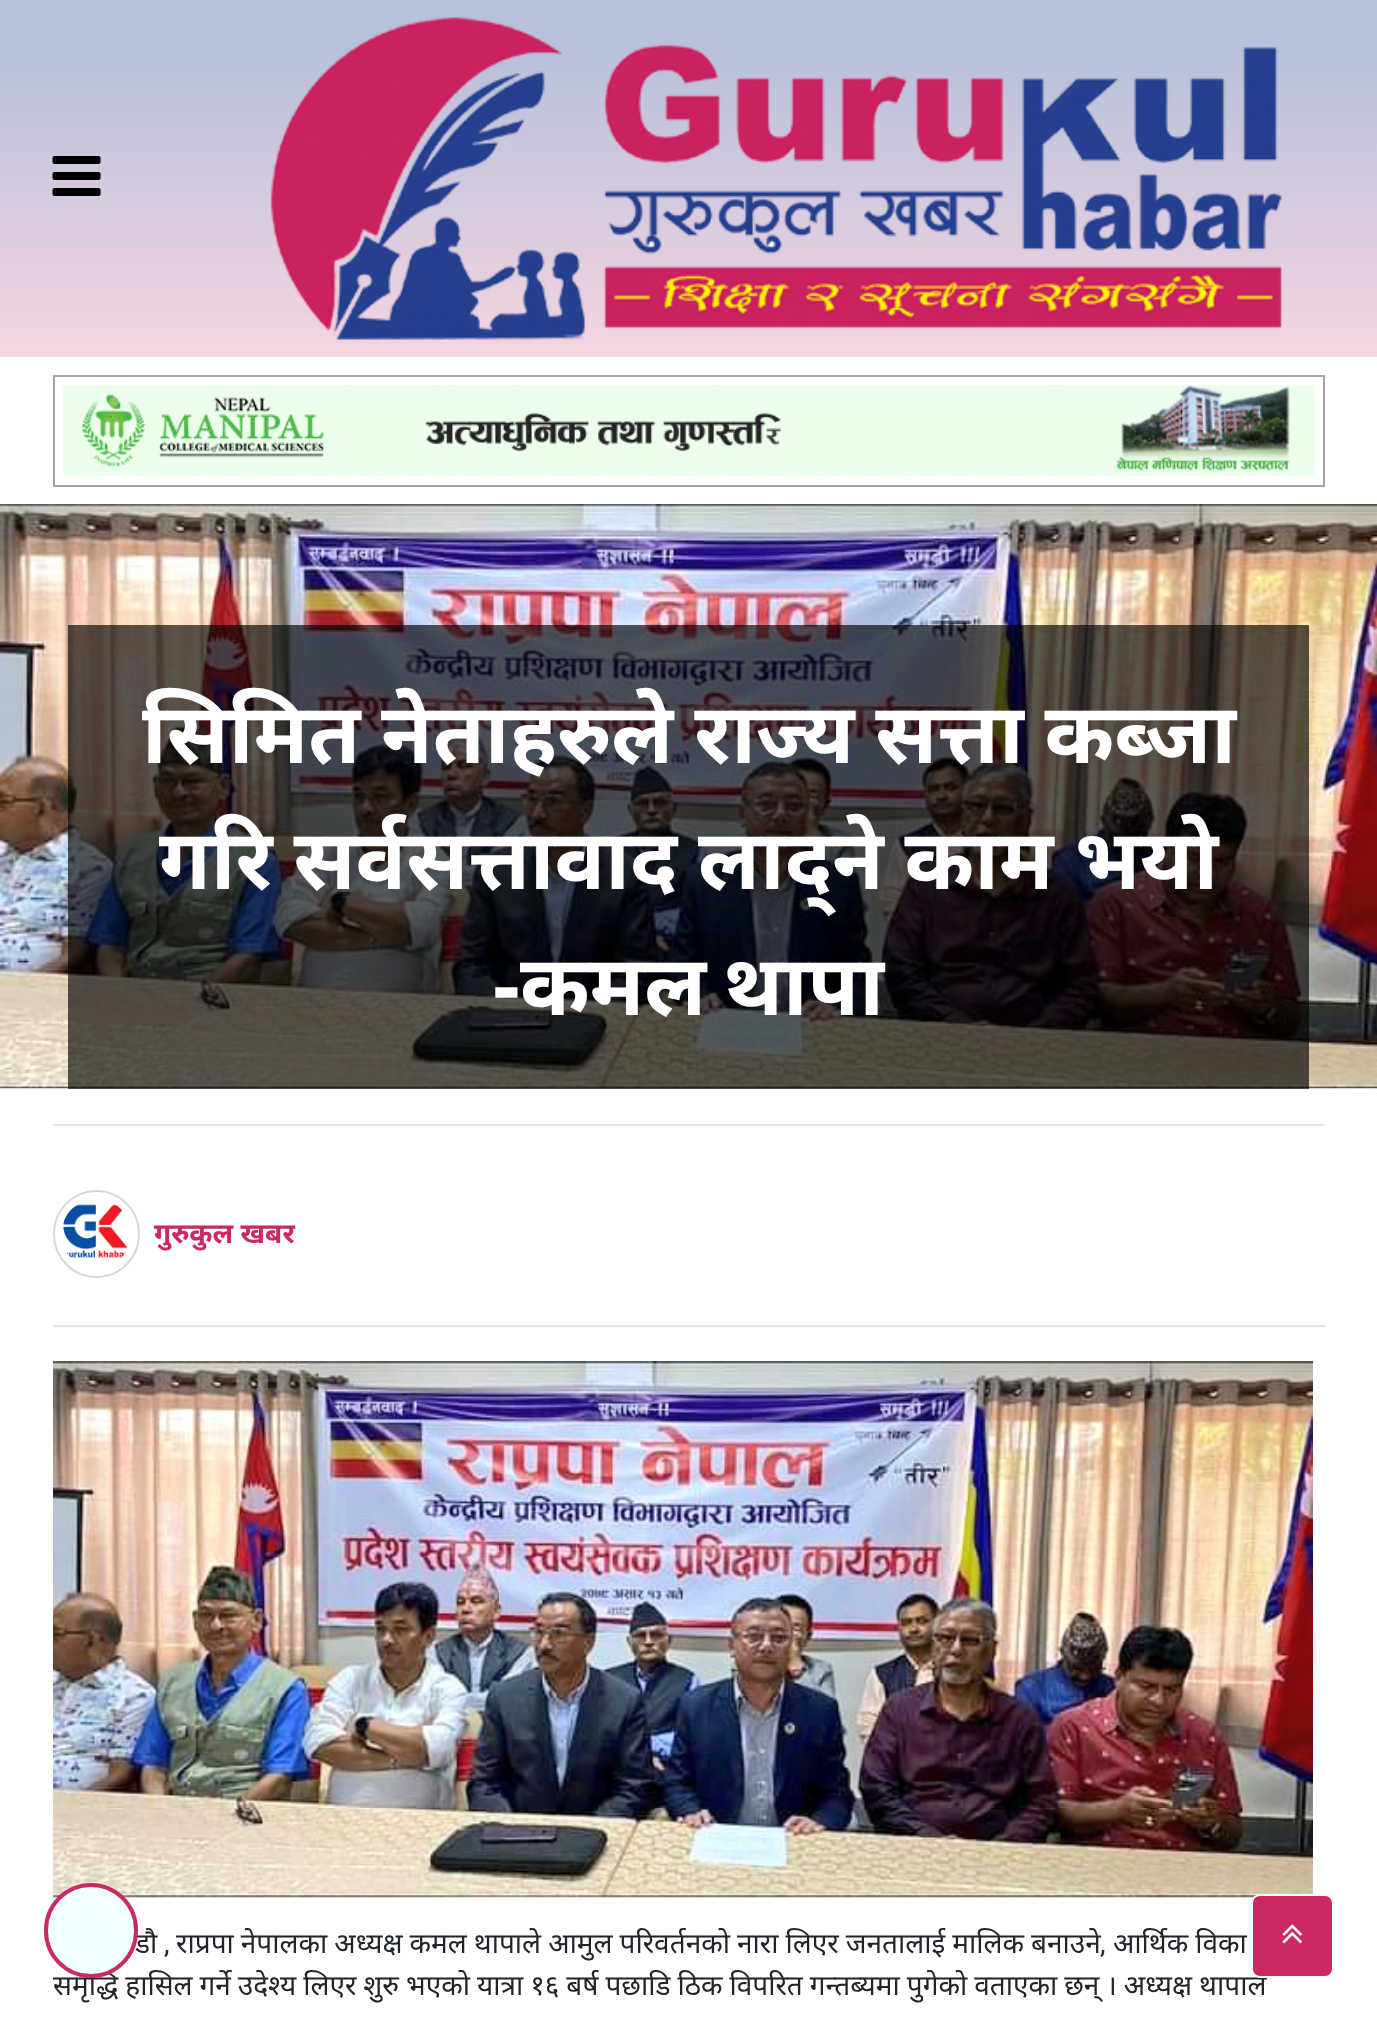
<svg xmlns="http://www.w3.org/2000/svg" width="1377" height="2020">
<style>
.a{font:bold 84px Noto Sans;fill:#fff}
.b{font:bold 28px Noto Sans;fill:#cc2864}
.c{font:28px Noto Sans;fill:#212529}
.d{font:28px Roboto;fill:#212529}
</style>
<defs>
<linearGradient id="g1" gradientUnits="userSpaceOnUse" x1="689" y1="0" x2="689" y2="357"><stop offset="0.15" stop-color="#b8c1db"/><stop offset="1" stop-color="#f5d5e1"/></linearGradient>
</defs>
<rect width="100%" height="100%" fill="#fff"/>
<path fill="url(#g1)" d="M0 0h1377v357H0z"/>
<image href="1.png" x="52" y="156" width="49" height="40"/>
<image href="2.png" x="270" y="17" width="1012" height="323"/>
<path fill="none" stroke="#a4a4a4" stroke-width="2" d="M54 376h1270v110H54z"/>
<image href="3.png" x="63" y="385" width="1252" height="91"/>
<image href="4.png" x="0" y="504" width="1377" height="585"/>
<path fill="#000000a6" d="M68 625h1241v464H68z"/>
<path fill="#e5e5e5" d="M53 1124h1272v2H53z"/>
<rect fill="none" stroke="#d8d8d8" stroke-width="2" x="54" y="1191" width="85" height="86" rx="42.5"/>
<image href="5.png" x="63" y="1204" width="65" height="54"/>
<path fill="#e5e5e5" d="M53 1325h1272v2H53z"/>
<image href="6.png" x="53" y="1361" width="1260" height="537"/>
<text class="a" x="142" y="763" word-spacing="-1">सिमित नेताहरुले राज्य सत्ता कब्जा</text>
<text class="a" x="159" y="889" word-spacing="-1">गरि सर्वसत्तावाद लाद्ने काम भयो</text>
<text class="a" x="493" y="1015" word-spacing="-5">-कमल थापा</text>
<text class="b" x="154" y="1243">गुरुकुल खबर</text>
<text class="c" x="135" y="1953">डौ</text>
<text class="d" x="164" y="1953">,</text>
<text class="c" x="176" y="1953" word-spacing="-0.25">राप्रपा नेपालका अध्यक्ष कमल थापाले आमुल परिवर्तनको नारा लिएर जनतालाई मालिक बनाउने</text>
<text class="d" x="1100" y="1953">,</text>
<text class="c" x="1113" y="1953" word-spacing="-0.25">आर्थिक विका</text>
<text class="c" x="53" y="1995" word-spacing="-0.3">समृद्धि हासिल गर्ने उदेश्य लिएर शुरु भएको यात्रा १६ बर्ष पछाडि ठिक विपरित गन्तब्यमा पुगेको वताएका छन् । अध्यक्ष थापाले</text>
<rect fill="#f0ffff" stroke="#cc2864" stroke-width="4" x="46" y="1885" width="90" height="91" rx="45"/>
<rect fill="#cc2864" stroke="#f8f9fa" stroke-width="2" x="1252" y="1895" width="81" height="82" rx="8"/>
<image href="7.png" x="1282" y="1924" width="20" height="20"/>
</svg>
